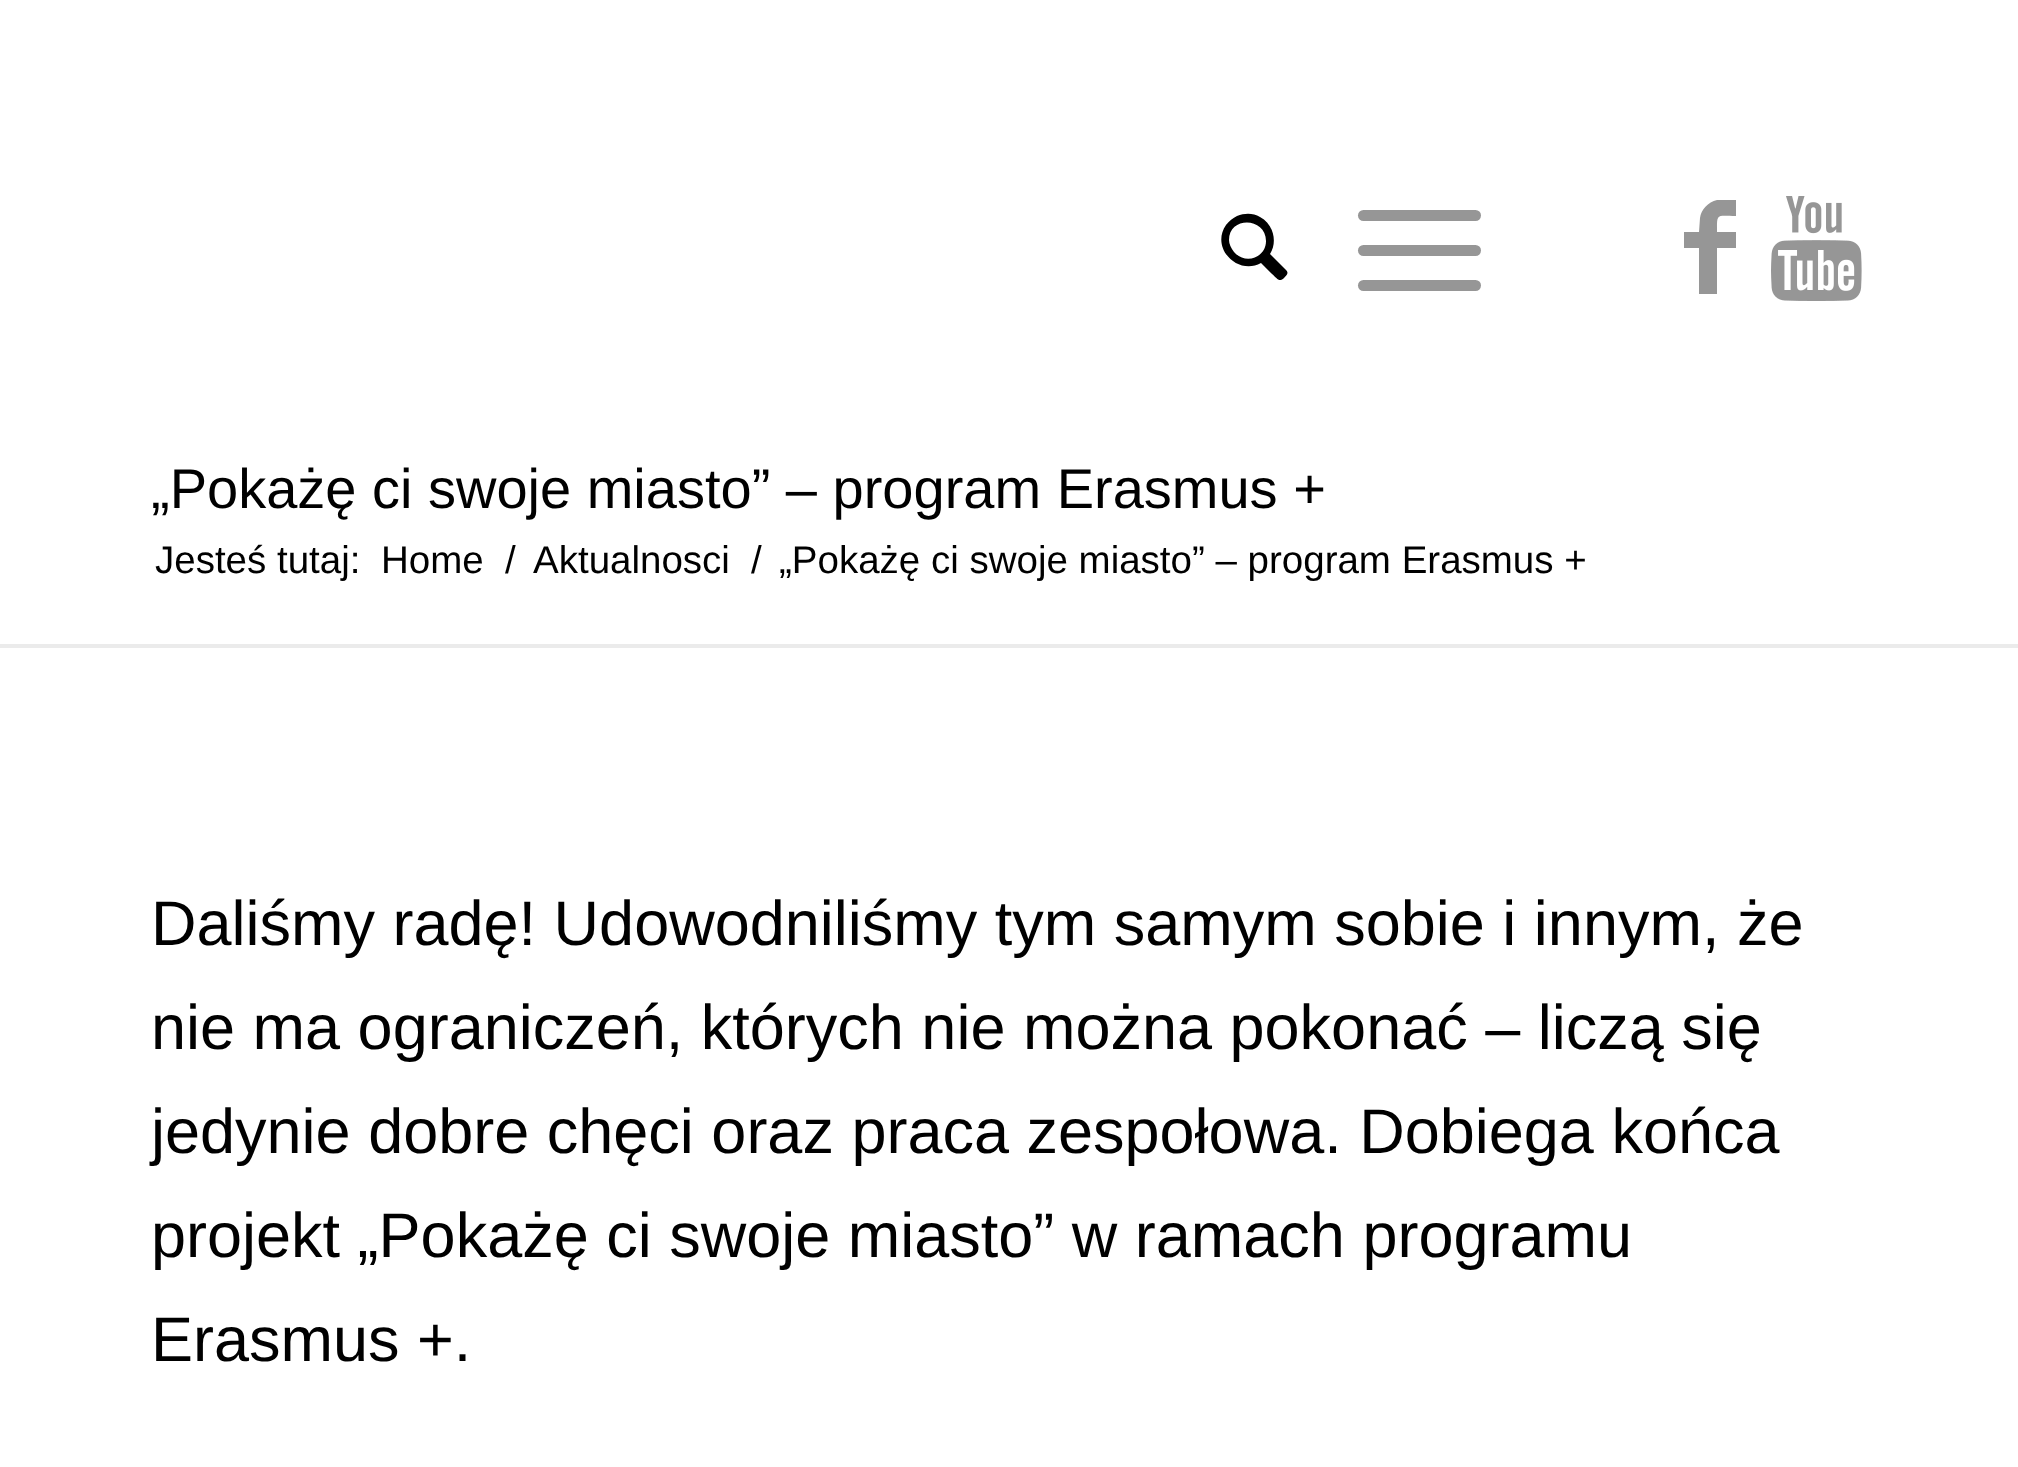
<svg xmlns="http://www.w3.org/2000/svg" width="2018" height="1467">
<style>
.a{font:56px Liberation Sans;fill:#000}
.b{font:38.5px Liberation Sans;fill:#000}
.c{font:63px Liberation Sans;fill:#000}
</style>
<rect width="100%" height="100%" fill="#fff"/>
<path fill="#000" d="M1286 270c3 3 1 5-2 8c-5 5-7 0-12-4l-11-11c-23 13-51-15-35-38c3-4 7-7 11-9c8-3 16-3 23 1c13 7 18 24 10 37zm-57-30c0 4 2 8 5 12c11 13 32 6 32-11c0-24-37-25-37-1z"/>
<rect fill="#969696" x="1358" y="245" width="123" height="11" rx="5.5"/>
<rect fill="#969696" x="1358" y="210" width="123" height="11" rx="5.5"/>
<rect fill="#969696" x="1358" y="280" width="123" height="11" rx="5.5"/>
<path fill="#969696" d="M1736 216c-20 0-19-3-19 16h19v16h-19v46h-18v-46h-15v-16h15l1-14c1-8 8-16 17-18h19z"/>
<image href="1.png" x="1771" y="196" width="91" height="105"/>
<path fill="#ebebeb" d="M0 644h2018v4H0z"/>
<text class="a" x="151" y="508">„Pokażę ci swoje miasto” – program Erasmus +</text>
<text class="b" x="155" y="573">Jesteś tutaj:</text>
<text class="b" x="381" y="573">Home</text>
<text class="b" x="505" y="573">/</text>
<text class="b" x="533" y="573">Aktualnosci</text>
<text class="b" x="751" y="573">/</text>
<text class="b" x="779" y="573">„Pokażę ci swoje miasto” – program Erasmus +</text>
<text class="c" x="151" y="945">Daliśmy radę! Udowodniliśmy tym samym sobie i innym, że</text>
<text class="c" x="151" y="1049">nie ma ograniczeń, których nie można pokonać – liczą się</text>
<text class="c" x="151" y="1153">jedynie dobre chęci oraz praca zespołowa. Dobiega końca</text>
<text class="c" x="151" y="1257">projekt „Pokażę ci swoje miasto” w ramach programu</text>
<text class="c" x="151" y="1361">Erasmus +.</text>
</svg>
